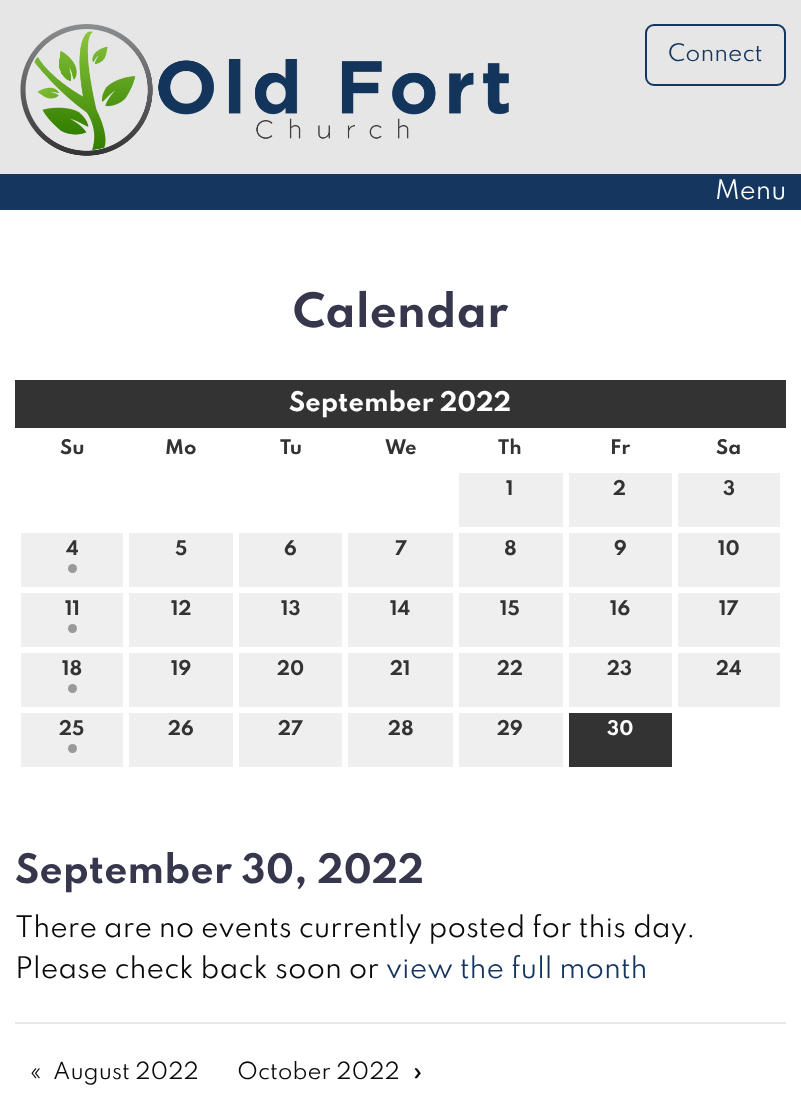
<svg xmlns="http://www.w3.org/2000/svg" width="801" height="1106">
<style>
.a{font:21.5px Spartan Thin;fill:#15365e}
.b{font:24px Spartan Thin;fill:#fefefe}
.c{font:bold 42px Spartan Thin;fill:#36374c}
.d{font:bold 24px Spartan Thin;fill:#fefefe}
.e{font:bold 18px Spartan Thin;fill:#333}
.f{font:bold 18px Spartan Thin;fill:#fefefe}
.g{font:bold 36px Spartan Thin;fill:#36374c}
.h{font:26.4px Spartan Thin;fill:#0a0a0a}
.i{font:26.4px Spartan Thin;fill:#15365e}
.j{font:21px Spartan Thin;fill:#0a0a0a}
</style>
<rect width="100%" height="100%" fill="#fff"/>
<path fill="#e6e6e6" d="M0 0h801v174H0z"/>
<image href="1.png" x="20" y="24" width="489" height="132"/>
<rect fill="none" stroke="#15365e" stroke-width="2" x="646" y="25" width="139" height="60" rx="8"/>
<path fill="#15365e" d="M0 174h801v36H0z"/>
<path fill="#333" d="M15 380h771v48H15z"/>
<path fill="#efefef" d="M459 473h104v54H459z"/>
<path fill="#efefef" d="M569 473h103v54H569z"/>
<path fill="#efefef" d="M678 473h102v54H678z"/>
<path fill="#efefef" d="M21 533h102v54H21z"/>
<circle fill="#999" cx="72.5" cy="568.5" r="4.5"/>
<path fill="#efefef" d="M129 533h104v54H129z"/>
<path fill="#efefef" d="M239 533h103v54H239z"/>
<path fill="#efefef" d="M348 533h105v54H348z"/>
<path fill="#efefef" d="M459 533h104v54H459z"/>
<path fill="#efefef" d="M569 533h103v54H569z"/>
<path fill="#efefef" d="M678 533h102v54H678z"/>
<path fill="#efefef" d="M21 593h102v54H21z"/>
<circle fill="#999" cx="72.5" cy="628.5" r="4.5"/>
<path fill="#efefef" d="M129 593h104v54H129z"/>
<path fill="#efefef" d="M239 593h103v54H239z"/>
<path fill="#efefef" d="M348 593h105v54H348z"/>
<path fill="#efefef" d="M459 593h104v54H459z"/>
<path fill="#efefef" d="M569 593h103v54H569z"/>
<path fill="#efefef" d="M678 593h102v54H678z"/>
<path fill="#efefef" d="M21 653h102v54H21z"/>
<circle fill="#999" cx="72.5" cy="688.5" r="4.5"/>
<path fill="#efefef" d="M129 653h104v54H129z"/>
<path fill="#efefef" d="M239 653h103v54H239z"/>
<path fill="#efefef" d="M348 653h105v54H348z"/>
<path fill="#efefef" d="M459 653h104v54H459z"/>
<path fill="#efefef" d="M569 653h103v54H569z"/>
<path fill="#efefef" d="M678 653h102v54H678z"/>
<path fill="#efefef" d="M21 713h102v54H21z"/>
<circle fill="#999" cx="72.5" cy="748.5" r="4.5"/>
<path fill="#efefef" d="M129 713h104v54H129z"/>
<path fill="#efefef" d="M239 713h103v54H239z"/>
<path fill="#efefef" d="M348 713h105v54H348z"/>
<path fill="#efefef" d="M459 713h104v54H459z"/>
<path fill="#333" d="M569 713h103v54H569z"/>
<path fill="#e7e7e7" d="M15 1022h771v2H15z"/>
<text class="a" x="668" y="61">Connect</text>
<text class="b" x="715" y="199">Menu</text>
<text class="c" x="293" y="327">Calendar</text>
<text class="d" x="289" y="411">September 2022</text>
<text class="e" x="60" y="454">Su</text>
<text class="e" x="165" y="454">Mo</text>
<text class="e" x="280" y="454">Tu</text>
<text class="e" x="385" y="454">We</text>
<text class="e" x="498" y="454">Th</text>
<text class="e" x="610" y="454">Fr</text>
<text class="e" x="716" y="454">Sa</text>
<text class="e" x="506" y="495">1</text>
<text class="e" x="613" y="495">2</text>
<text class="e" x="723" y="495">3</text>
<text class="e" x="66" y="555">4</text>
<text class="e" x="175" y="555">5</text>
<text class="e" x="284" y="555">6</text>
<text class="e" x="395" y="555">7</text>
<text class="e" x="504" y="555">8</text>
<text class="e" x="614" y="555">9</text>
<text class="e" x="718" y="555">10</text>
<text class="e" x="65" y="615">11</text>
<text class="e" x="171" y="615">12</text>
<text class="e" x="281" y="615">13</text>
<text class="e" x="390" y="615">14</text>
<text class="e" x="500" y="615">15</text>
<text class="e" x="610" y="615">16</text>
<text class="e" x="719" y="615">17</text>
<text class="e" x="62" y="675">18</text>
<text class="e" x="171" y="675">19</text>
<text class="e" x="277" y="675">20</text>
<text class="e" x="390" y="675">21</text>
<text class="e" x="497" y="675">22</text>
<text class="e" x="607" y="675">23</text>
<text class="e" x="716" y="675">24</text>
<text class="e" x="59" y="735">25</text>
<text class="e" x="168" y="735">26</text>
<text class="e" x="278" y="735">27</text>
<text class="e" x="388" y="735">28</text>
<text class="e" x="497" y="735">29</text>
<text class="f" x="607" y="735">30</text>
<text class="g" x="15" y="883">September 30, 2022</text>
<text class="h" x="15" y="937">There are no events currently posted for this day.</text>
<text class="h" x="15" y="978">Please check back soon or</text>
<text class="i" x="386" y="978">view the full month</text>
<text class="j" x="30" y="1079">«</text>
<text class="j" x="53" y="1079">August 2022</text>
<text class="j" x="237" y="1079">October 2022</text>
<text class="j" x="412" y="1079">»</text>
</svg>
